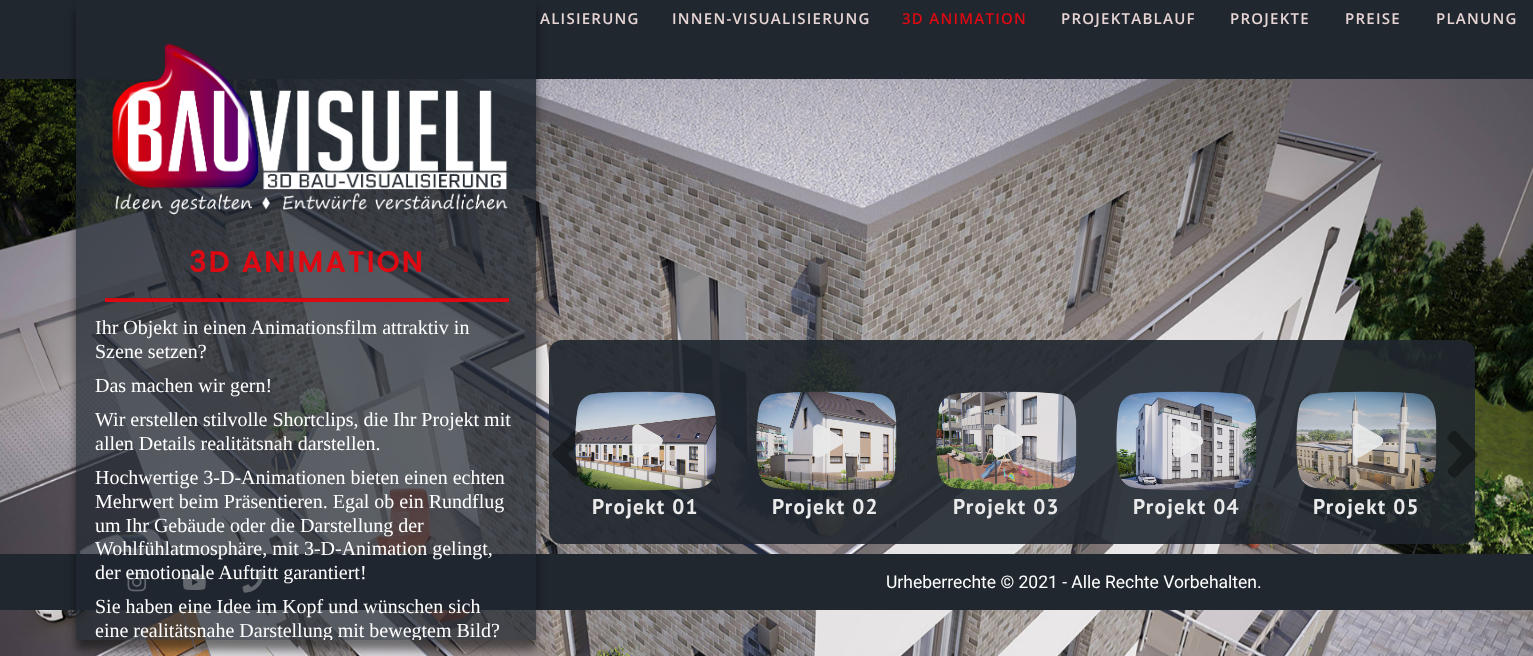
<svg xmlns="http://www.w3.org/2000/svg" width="1533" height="656">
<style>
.a{font:600 15px Open Sans;letter-spacing:1.25px;fill:#e7d5d5}
.b{font:600 15px Open Sans;letter-spacing:1.25px;fill:#dd0a13}
.c{font:bold 28.75px Poppins;letter-spacing:2.5px;fill:#dd0a13}
.d{font:20px Liberation Serif;fill:#fff}
.e{font:bold 21.25px PT Sans;letter-spacing:1.25px;fill:#eaeaeb}
.f{font:17.5px Roboto;fill:#fff}
</style>
<defs>
<clipPath id="clip1"><path d="M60 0h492v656h-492zm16 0h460v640h-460z" clip-rule="evenodd"/></clipPath>
<clipPath id="clip2"><path d="M76 0h460v640H76z"/></clipPath>
</defs>
<rect width="100%" height="100%" fill="#20272f"/>
<image href="1.png" x="0" y="79" width="1533" height="577"/>
<rect fill="#20272fe6" x="549" y="340" width="926" height="204" rx="13"/>
<path fill="#20272f" d="M0 554h1533v56H0z"/>
<image href="8.png" x="127" y="572" width="20" height="20"/>
<image href="9.png" x="183" y="574" width="23" height="16"/>
<image href="10.png" x="242" y="571" width="22" height="22"/>
<g clip-path="url(#clip1)">
<path fill="#00000080" filter="blur(5px)" d="M76 10h460v640H76z"/>
</g>
<path fill="#20272fb3" d="M76 79h460v561H76z"/>
<path fill="#20272f80" d="M76 79h460v110H76z"/>
<image href="2.png" x="112" y="43" width="396" height="172"/>
<path fill="#dd0a13" d="M105 299h404v3H105z"/>
<path fill="#c70911" d="M105 298h404v1H105z"/>
<image href="3.png" x="575" y="391" width="142" height="100"/>
<path fill="#0000005c" d="M553 452l14-13c7-8 7-11 15-4c3 4-3 8-5 10l-9 9l9 10c2 2 8 6 5 9c-7 8-8 4-15-3l-10-10c-2-2-7-5-4-8z"/>
<path fill="#0000005c" d="M1477 457l-14 13c-6 6-7 11-13 5c-5-5-1-7 3-11l9-10l-9-9c-2-2-8-6-5-9c7-9 8-5 15 3l10 10c2 1 7 5 4 8z"/>
<image href="4.png" x="756" y="391" width="141" height="100"/>
<image href="5.png" x="936" y="391" width="141" height="100"/>
<image href="6.png" x="1116" y="391" width="141" height="100"/>
<image href="7.png" x="1296" y="391" width="141" height="100"/>
<text class="a" x="540" y="24">ALISIERUNG</text>
<text class="a" x="672" y="24">INNEN-VISUALISIERUNG</text>
<text class="b" x="902" y="24">3D ANIMATION</text>
<text class="a" x="1061" y="24">PROJEKTABLAUF</text>
<text class="a" x="1230" y="24">PROJEKTE</text>
<text class="a" x="1345" y="24">PREISE</text>
<text class="a" x="1436" y="24">PLANUNG</text>
<text class="c" x="189" y="272">3D ANIMATION</text>
<text class="d" x="95" y="334">Ihr Objekt in einen Animationsfilm attraktiv in</text>
<text class="d" x="95" y="358">Szene setzen?</text>
<text class="d" x="95" y="392">Das machen wir gern!</text>
<text class="d" x="95" y="426">Wir erstellen stilvolle Shortclips, die Ihr Projekt mit</text>
<text class="d" x="95" y="450">allen Details realitätsnah darstellen.</text>
<text class="d" x="95" y="484">Hochwertige 3-D-Animationen bieten einen echten</text>
<text class="d" x="95" y="508">Mehrwert beim Präsentieren. Egal ob ein Rundflug</text>
<text class="d" x="95" y="532">um Ihr Gebäude oder die Darstellung der</text>
<text class="d" x="95" y="555">Wohlfühlatmosphäre, mit 3-D-Animation gelingt,</text>
<text class="d" x="95" y="579">der emotionale Auftritt garantiert!</text>
<text class="d" x="95" y="613">Sie haben eine Idee im Kopf und wünschen sich</text>
<g clip-path="url(#clip2)">
<text class="d" x="95" y="637">eine realitätsnahe Darstellung mit bewegtem Bild?</text>
</g>
<text class="e" x="592" y="514">Projekt 01</text>
<text class="e" x="772" y="514">Projekt 02</text>
<text class="e" x="953" y="514">Projekt 03</text>
<text class="e" x="1133" y="514">Projekt 04</text>
<text class="e" x="1313" y="514">Projekt 05</text>
<text class="f" x="886" y="588">Urheberrechte © 2021 - Alle Rechte Vorbehalten.</text>
</svg>
